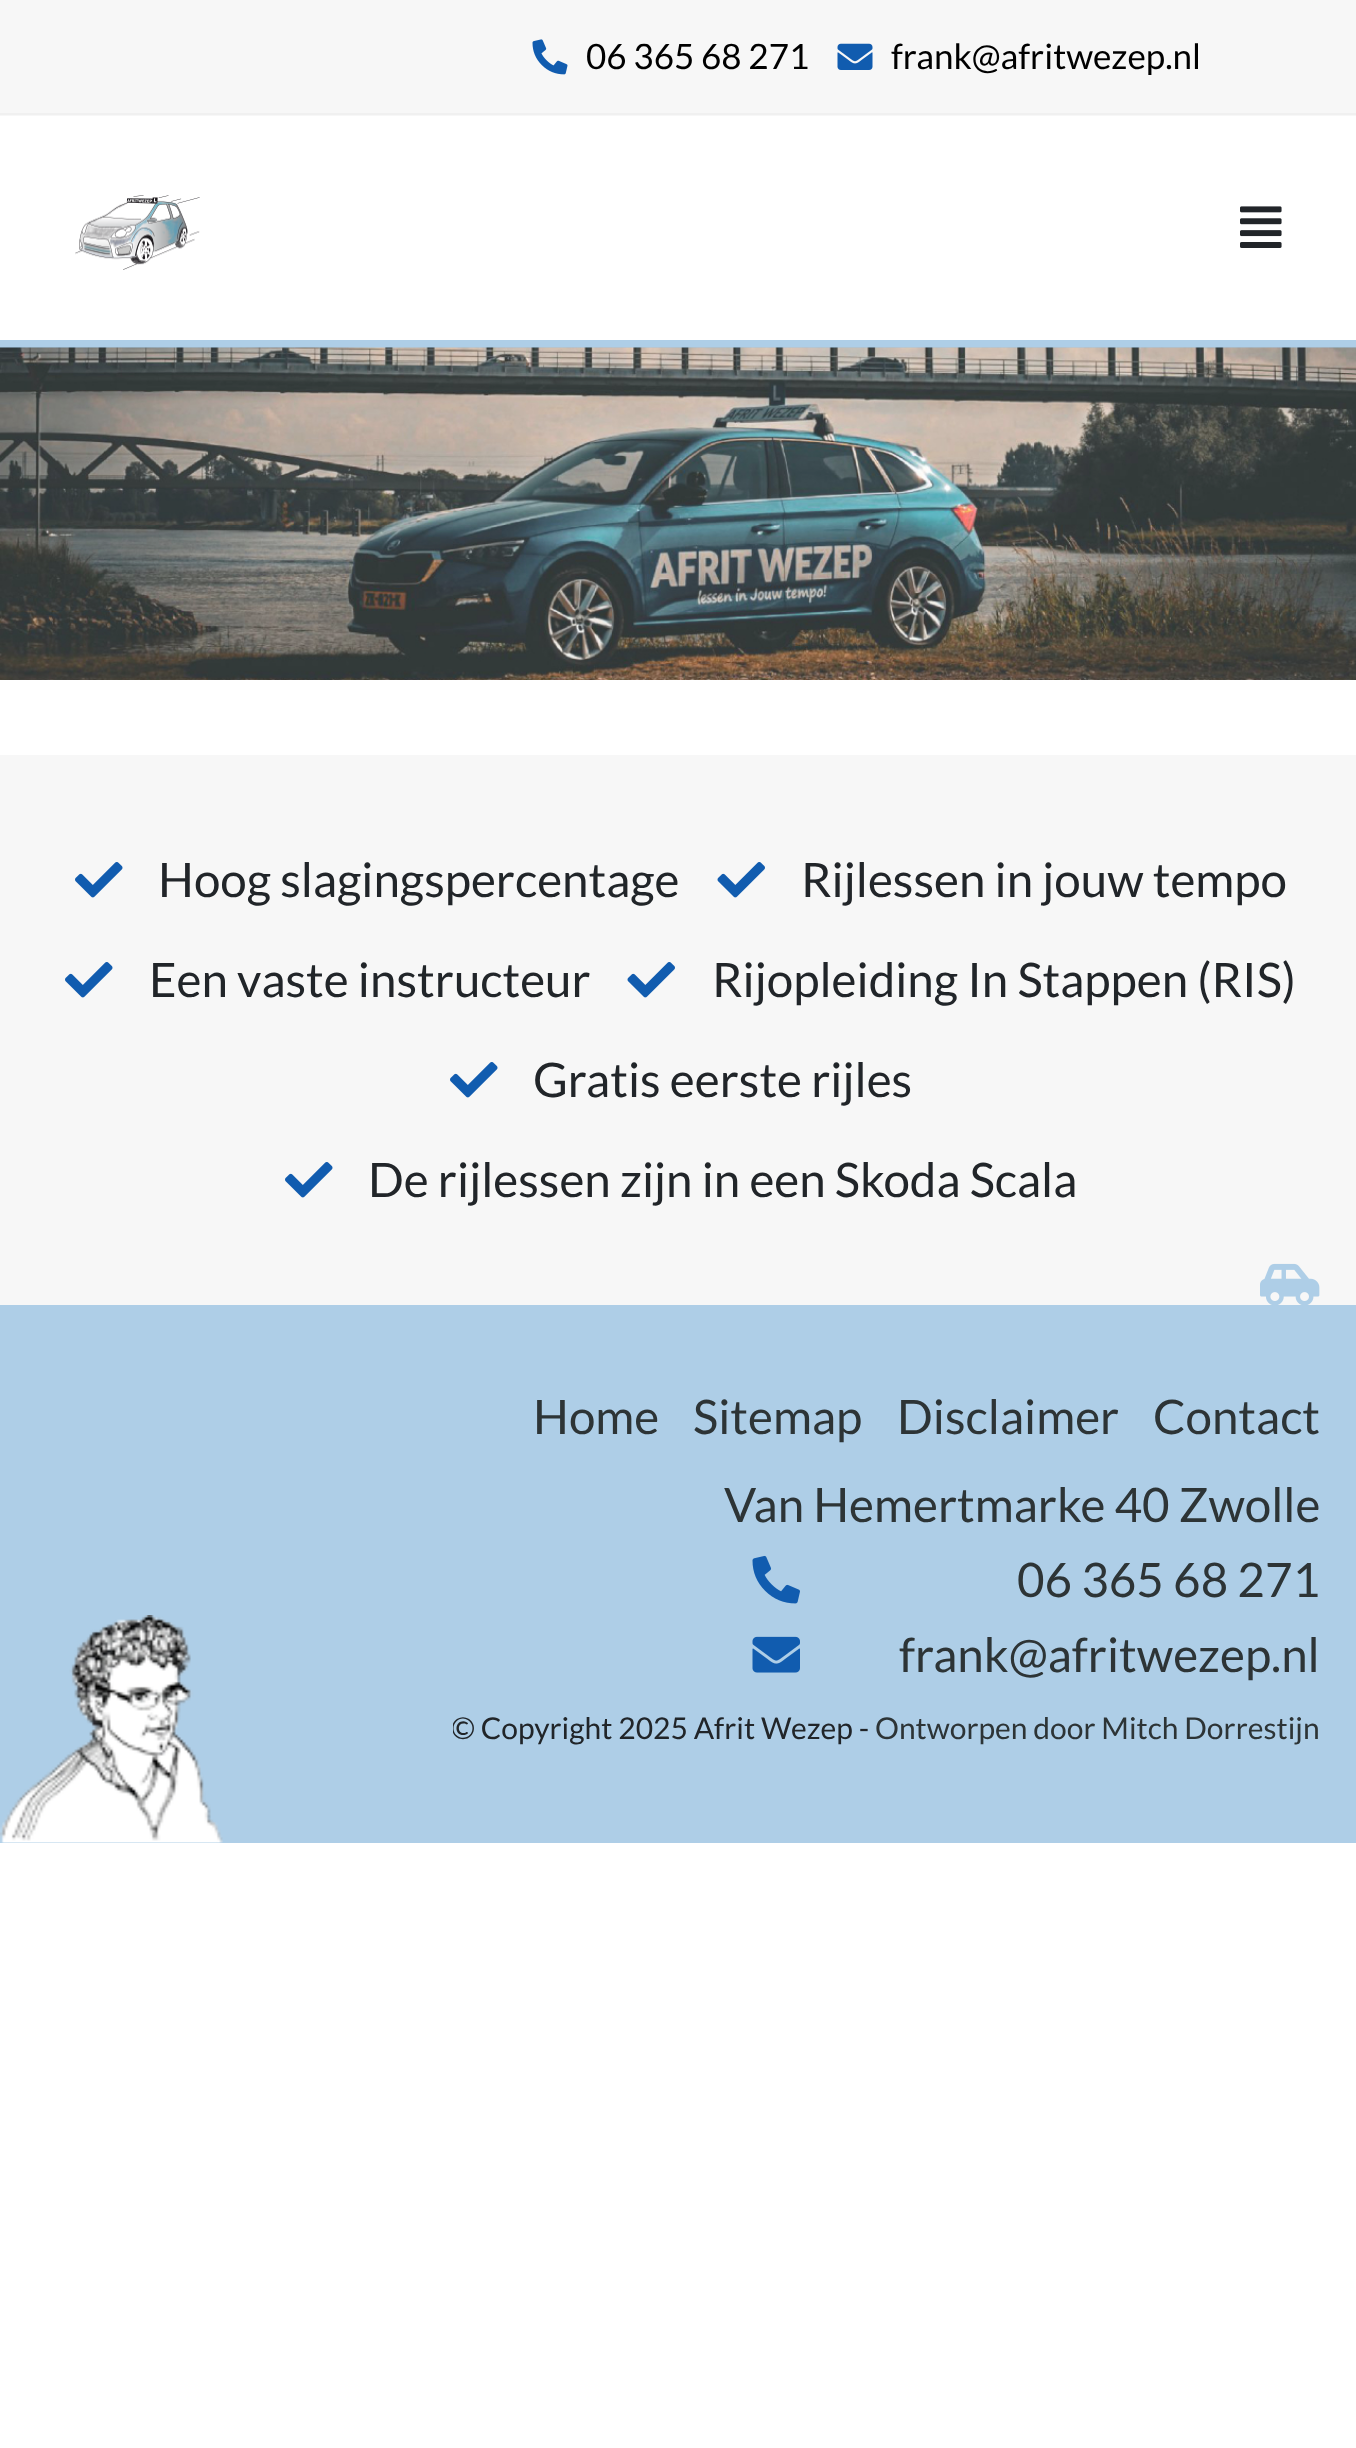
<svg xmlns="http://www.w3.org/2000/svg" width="1356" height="2448">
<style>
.a{font:35px Lato;fill:#000}
.b{font:47.5px Lato;fill:#212529}
.c{font:47.5px Lato;fill:#2d3436}
.d{font:30px Lato;fill:#212529}
.e{font:30px Lato;fill:#2d3436}
</style>
<defs>
<clipPath id="clip1"><path d="M453 1693h867v75H453z"/></clipPath>
</defs>
<rect width="100%" height="100%" fill="#fff"/>
<path fill="#f7f7f7" d="M0 115h1356v1H0z"/>
<path fill="#f7f7f7" d="M0 0h1356v113H0z"/>
<path fill="#f0f0f0" d="M0 113h1356v2H0z"/>
<image href="1.png" x="532" y="39" width="36" height="36"/>
<image href="2.png" x="837" y="43" width="36" height="27"/>
<image href="3.png" x="75" y="195" width="125" height="75"/>
<image href="4.png" x="1240" y="206" width="42" height="42"/>
<path fill="#aecee7" d="M0 340h1356v8H0z"/>
<image href="5.png" x="0" y="347" width="1356" height="333"/>
<path fill="#f7f7f7" d="M0 755h1356v550H0z"/>
<image href="6.png" x="75" y="862" width="48" height="36"/>
<image href="7.png" x="717" y="862" width="48" height="36"/>
<image href="6.png" x="65" y="962" width="48" height="36"/>
<image href="7.png" x="627" y="962" width="48" height="36"/>
<image href="6.png" x="450" y="1062" width="48" height="36"/>
<image href="6.png" x="285" y="1162" width="48" height="36"/>
<path fill="#aecee7" d="M0 1305h1356v538H0z"/>
<image href="8.png" x="1260" y="1263" width="60" height="42"/>
<image href="9.png" x="0" y="1615" width="223" height="228"/>
<image href="10.png" x="752" y="1555" width="48" height="49"/>
<image href="11.png" x="752" y="1636" width="48" height="37"/>
<text class="a" x="586" y="69">06 365 68 271</text>
<text class="a" x="891" y="69">frank@afritwezep.nl</text>
<text class="b" x="158" y="897">Hoog slagingspercentage</text>
<text class="b" x="801" y="897">Rijlessen in jouw tempo</text>
<text class="b" x="149" y="997">Een vaste instructeur</text>
<text class="b" x="712" y="997">Rijopleiding In Stappen (RIS)</text>
<text class="b" x="533" y="1097">Gratis eerste rijles</text>
<text class="b" x="368" y="1197">De rijlessen zijn in een Skoda Scala</text>
<text class="c" x="533" y="1434">Home</text>
<text class="c" x="693" y="1434">Sitemap</text>
<text class="c" x="897" y="1434">Disclaimer</text>
<text class="c" x="1153" y="1434">Contact</text>
<text class="c" x="724" y="1522">Van Hemertmarke 40 Zwolle</text>
<text class="c" x="1017" y="1597">06 365 68 271</text>
<text class="c" x="899" y="1672">frank@afritwezep.nl</text>
<g clip-path="url(#clip1)">
<text class="d" x="451" y="1739">© Copyright 2025 Afrit Wezep -</text>
</g>
<text class="e" x="875" y="1739">Ontworpen door Mitch Dorrestijn</text>
</svg>
